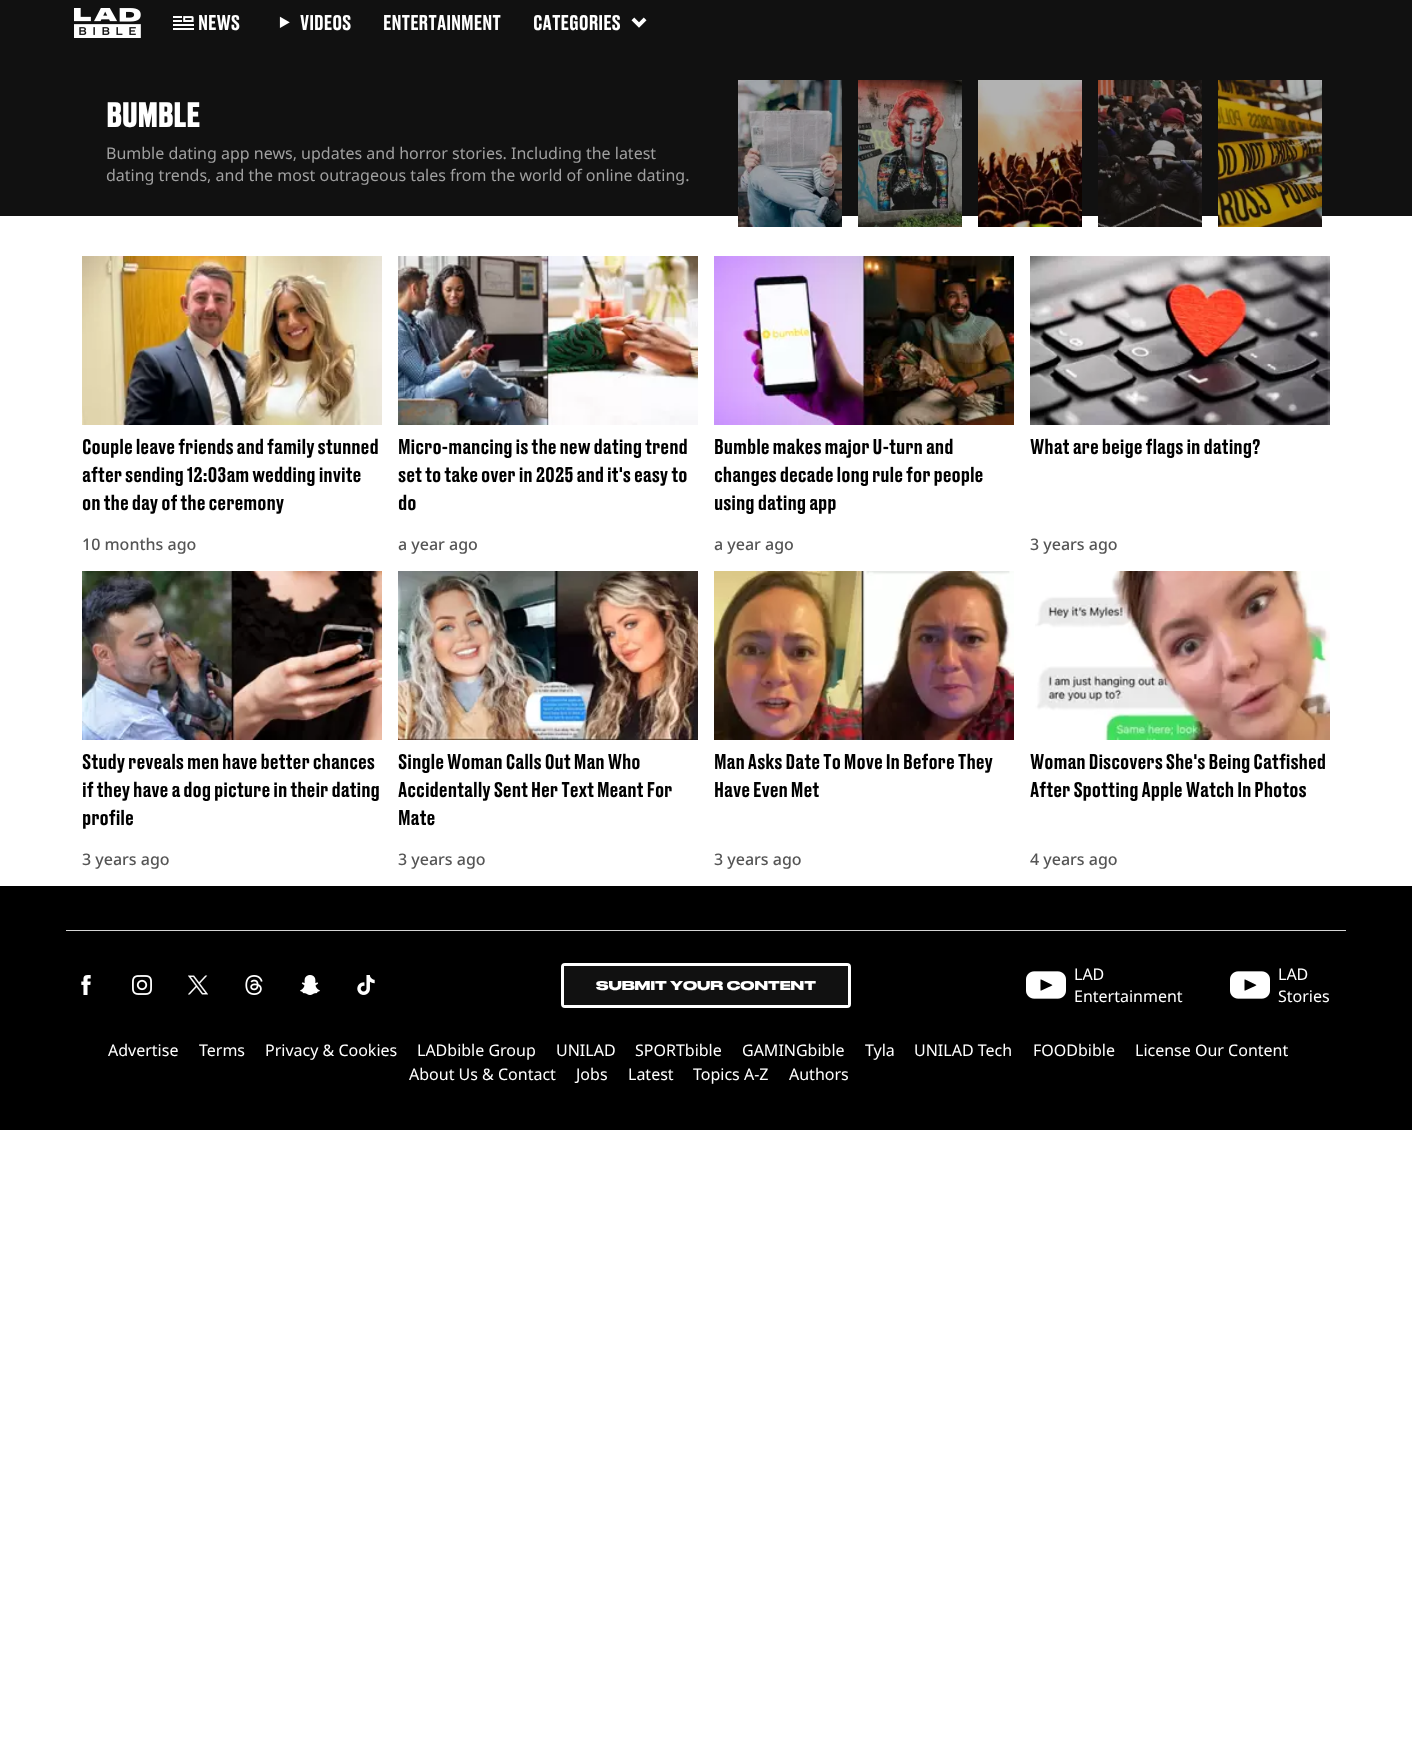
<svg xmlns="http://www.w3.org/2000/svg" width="1412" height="1752">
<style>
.a{font:500 20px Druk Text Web;fill:#fff}
.b{font:bold 32px Druk Text Web;fill:#fff}
.c{font:16px Noto Sans;fill:#a0a0a0}
.d{font:500 20px Druk Text Web;fill:#000}
.e{font:500 16px Noto Sans;fill:#555}
.f{font:bold 12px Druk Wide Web;fill:#fff}
.g{font:16px Noto Sans;fill:#fff}
</style>
<rect width="100%" height="100%" fill="#fff"/>
<path fill="#111" d="M0 0h1412v216H0z"/>
<image href="1.png" x="74" y="8" width="67" height="30"/>
<image href="2.png" x="173" y="16" width="21" height="14"/>
<image href="3.png" x="279" y="16" width="11" height="12"/>
<image href="4.png" x="631" y="17" width="16" height="11"/>
<image href="5.png" x="738" y="80" width="104" height="147"/>
<image href="6.png" x="858" y="80" width="104" height="147"/>
<image href="7.png" x="978" y="80" width="104" height="147"/>
<image href="8.png" x="1098" y="80" width="104" height="147"/>
<image href="9.png" x="1218" y="80" width="104" height="147"/>
<image href="10.png" x="82" y="256" width="300" height="169"/>
<image href="11.png" x="398" y="256" width="300" height="169"/>
<image href="12.png" x="714" y="256" width="300" height="169"/>
<image href="13.png" x="1030" y="256" width="300" height="169"/>
<image href="14.png" x="82" y="571" width="300" height="169"/>
<image href="15.png" x="398" y="571" width="300" height="169"/>
<image href="16.png" x="714" y="571" width="300" height="169"/>
<image href="17.png" x="1035" y="571" width="295" height="169"/>
<path fill="#000" d="M0 886h1412v244H0z"/>
<path fill="#d5d5d5" d="M66 930h1280v1H66z"/>
<rect fill="none" stroke="#fff" stroke-width="3" x="562.5" y="964.5" width="287" height="42" rx="2.5"/>
<path fill="#111" d="M564 966h284v39H564z"/>
<image href="18.png" x="81" y="975" width="10" height="20"/>
<image href="19.png" x="132" y="975" width="20" height="20"/>
<image href="20.png" x="188" y="975" width="20" height="20"/>
<image href="21.png" x="245" y="975" width="18" height="20"/>
<image href="22.png" x="300" y="975" width="20" height="20"/>
<image href="23.png" x="357" y="975" width="18" height="20"/>
<image href="24.png" x="1026" y="971" width="40" height="28"/>
<image href="24.png" x="1230" y="971" width="40" height="28"/>
<text class="a" x="198" y="30">NEWS</text>
<text class="a" x="300" y="30">VIDEOS</text>
<text class="a" x="383" y="30">ENTERTAINMENT</text>
<text class="a" x="533" y="30">CATEGORIES</text>
<text class="b" x="106" y="127">BUMBLE</text>
<text class="c" x="106" y="159">Bumble dating app news, updates and horror stories. Including the latest</text>
<text class="c" x="106" y="181">dating trends, and the most outrageous tales from the world of online dating.</text>
<text class="d" x="82" y="454">Couple leave friends and family stunned</text>
<text class="d" x="82" y="482">after sending 12:03am wedding invite</text>
<text class="d" x="82" y="510">on the day of the ceremony</text>
<text class="e" x="82" y="550">10 months ago</text>
<text class="d" x="398" y="454">Micro-mancing is the new dating trend</text>
<text class="d" x="398" y="482">set to take over in 2025 and it's easy to</text>
<text class="d" x="398" y="510">do</text>
<text class="e" x="398" y="550">a year ago</text>
<text class="d" x="714" y="454">Bumble makes major U-turn and</text>
<text class="d" x="714" y="482">changes decade long rule for people</text>
<text class="d" x="714" y="510">using dating app</text>
<text class="e" x="714" y="550">a year ago</text>
<text class="d" x="1030" y="454">What are beige flags in dating?</text>
<text class="e" x="1030" y="550">3 years ago</text>
<text class="d" x="82" y="769">Study reveals men have better chances</text>
<text class="d" x="82" y="797">if they have a dog picture in their dating</text>
<text class="d" x="82" y="825">profile</text>
<text class="e" x="82" y="865">3 years ago</text>
<text class="d" x="398" y="769">Single Woman Calls Out Man Who</text>
<text class="d" x="398" y="797">Accidentally Sent Her Text Meant For</text>
<text class="d" x="398" y="825">Mate</text>
<text class="e" x="398" y="865">3 years ago</text>
<text class="d" x="714" y="769">Man Asks Date To Move In Before They</text>
<text class="d" x="714" y="797">Have Even Met</text>
<text class="e" x="714" y="865">3 years ago</text>
<text class="d" x="1030" y="769">Woman Discovers She's Being Catfished</text>
<text class="d" x="1030" y="797">After Spotting Apple Watch In Photos</text>
<text class="e" x="1030" y="865">4 years ago</text>
<text class="f" x="596" y="990">SUBMIT YOUR CONTENT</text>
<text class="g" x="1074" y="980">LAD</text>
<text class="g" x="1074" y="1002">Entertainment</text>
<text class="g" x="1278" y="980">LAD</text>
<text class="g" x="1278" y="1002">Stories</text>
<text class="g" x="108" y="1056">Advertise</text>
<text class="g" x="199" y="1056">Terms</text>
<text class="g" x="265" y="1056">Privacy &amp; Cookies</text>
<text class="g" x="417" y="1056">LADbible Group</text>
<text class="g" x="556" y="1056">UNILAD</text>
<text class="g" x="635" y="1056">SPORTbible</text>
<text class="g" x="742" y="1056">GAMINGbible</text>
<text class="g" x="865" y="1056">Tyla</text>
<text class="g" x="914" y="1056">UNILAD Tech</text>
<text class="g" x="1033" y="1056">FOODbible</text>
<text class="g" x="1135" y="1056">License Our Content</text>
<text class="g" x="409" y="1080">About Us &amp; Contact</text>
<text class="g" x="576" y="1080">Jobs</text>
<text class="g" x="628" y="1080">Latest</text>
<text class="g" x="693" y="1080">Topics A-Z</text>
<text class="g" x="789" y="1080">Authors</text>
</svg>
